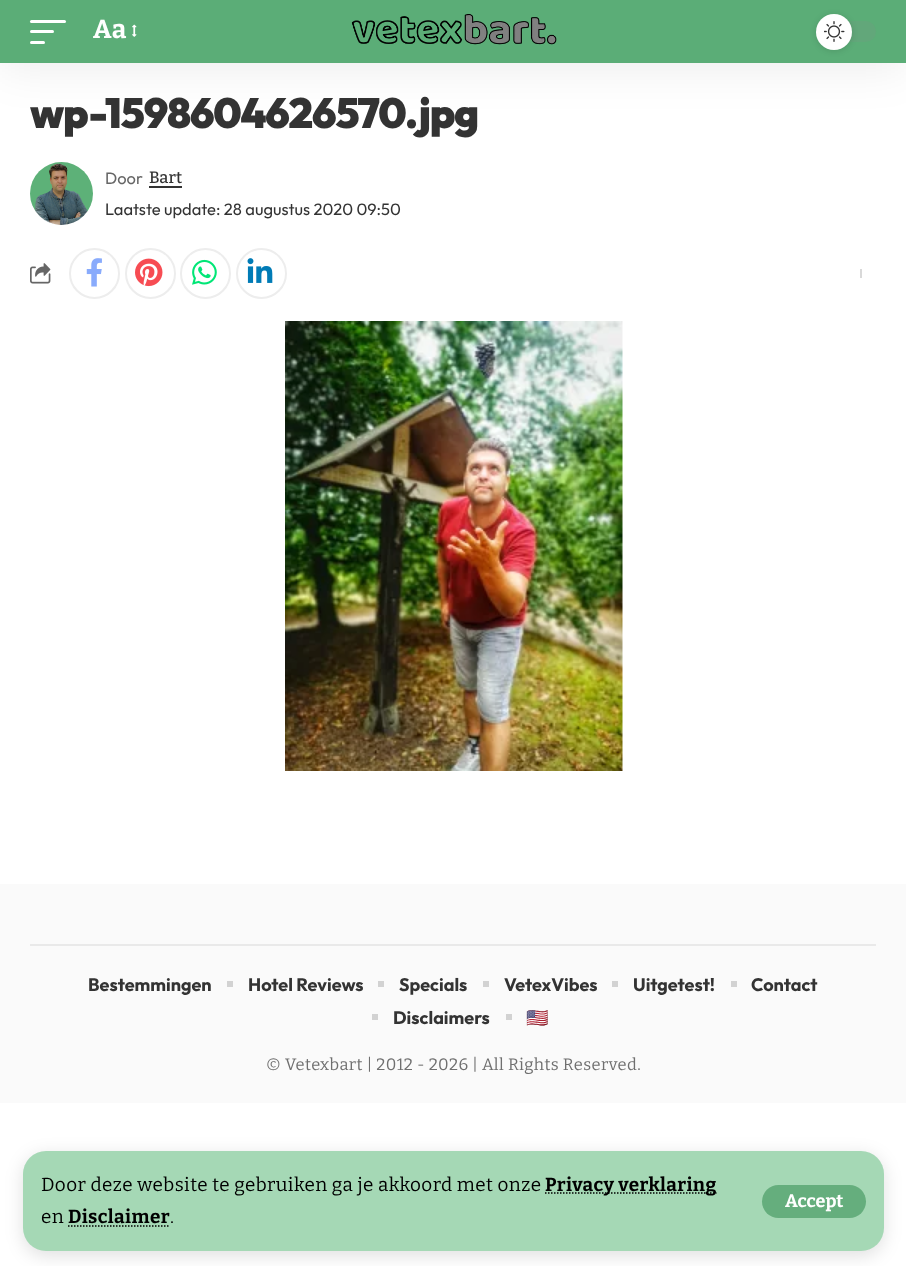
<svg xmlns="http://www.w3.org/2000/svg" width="906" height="1266">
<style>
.a{font:bold 26px Bitter;letter-spacing:0.43px;fill:#fff}
.b{font:18.9px Bitter;letter-spacing:0.43px;fill:#000}
.c{font:bold 18.9px Bitter;letter-spacing:0.43px;fill:#000}
.d{font:bold 18px Bitter;fill:#fff}
.e{font:900 42px Outfit;letter-spacing:-1.2px;fill:#333}
.f{font:16.5px Outfit;fill:#666}
.g{font:500 16.5px Bitter;fill:#333}
.h{font:16.5px Outfit;fill:#333}
.i{font:bold 18px Outfit;fill:#333}
.j{font:bold 18px Noto Color Emoji;fill:#333}
.k{font:16.5px Bitter;letter-spacing:0.43px;fill:#6f6f6f}
</style>
<rect width="100%" height="100%" fill="#fff"/>
<path fill="#00000012" filter="blur(22.5px)" d="M0 6h906v63H0z"/>
<path fill="#5bad77" d="M0 0h906v63H0z"/>
<rect fill="#fff" x="30" y="20" width="36" height="3" rx="1.5"/>
<rect fill="#fff" x="30" y="30" width="24" height="3" rx="1.5"/>
<rect fill="#fff" x="30" y="41" width="15" height="3" rx="1.5"/>
<image href="1.png" x="132" y="24" width="5" height="13"/>
<image href="2.png" x="351" y="14" width="206" height="31"/>
<rect fill="#62a77a" x="816" y="21" width="60" height="21" rx="10.5"/>
<rect fill="#0000001f" filter="blur(3px)" x="816" y="15" width="36" height="36" rx="18"/>
<circle fill="#fff" cx="834" cy="32" r="18"/>
<image href="3.png" x="824" y="21" width="21" height="21"/>
<rect fill="#0000001f" filter="blur(9px)" x="23" y="1155" width="861" height="101" rx="23"/>
<rect fill="#a5d8b5" x="23" y="1151" width="861" height="100" rx="23"/>
<path fill="none" stroke="#000" stroke-width="1.5" stroke-dasharray="1.5 1.5" d="M545 1193h171.5"/>
<path fill="none" stroke="#000" stroke-width="1.5" stroke-dasharray="1.5 1.5" d="M68 1226h102"/>
<rect fill="#65ae7d" x="762" y="1185" width="104" height="33" rx="16.5"/>
<image href="4.png" x="30" y="162" width="63" height="63"/>
<path fill="#333" d="M149 186h33v2H149z"/>
<image href="5.png" x="30" y="263" width="21" height="21"/>
<circle fill="none" stroke="#ededed" stroke-width="2" cx="94.5" cy="273.5" r="24.5"/>
<image href="6.png" x="86" y="258" width="16" height="29"/>
<circle fill="none" stroke="#ededed" stroke-width="2" cx="150.5" cy="273.5" r="24.5"/>
<image href="7.png" x="135" y="258" width="28" height="29"/>
<circle fill="none" stroke="#ededed" stroke-width="2" cx="205.5" cy="273.5" r="24.5"/>
<image href="8.png" x="192" y="259" width="25" height="26"/>
<circle fill="none" stroke="#ededed" stroke-width="2" cx="261.5" cy="273.5" r="24.5"/>
<image href="9.png" x="247" y="258" width="26" height="25"/>
<path fill="#d9d9d9" d="M860 269h2v9H860z"/>
<image href="10.png" x="285" y="321" width="338" height="450"/>
<path fill="#fafafa" d="M0 884h906v219H0z"/>
<path fill="#e9e9e9" d="M30 944h846v2H30z"/>
<path fill="#d2d2d2" d="M227 981h6v6H227z"/>
<path fill="#d2d2d2" d="M378 981h6v6H378z"/>
<path fill="#d2d2d2" d="M483 981h6v6H483z"/>
<path fill="#d2d2d2" d="M612 981h6v6H612z"/>
<path fill="#d2d2d2" d="M731 981h6v6H731z"/>
<path fill="#d2d2d2" d="M372 1014h6v6H372z"/>
<path fill="#d2d2d2" d="M506 1014h6v6H506z"/>
<text class="a" x="93" y="38">Aa</text>
<text class="b" x="41" y="1191">Door deze website te gebruiken ga je akkoord met onze</text>
<text class="c" x="545" y="1191">Privacy verklaring</text>
<text class="b" x="41" y="1223">en</text>
<text class="c" x="68" y="1223">Disclaimer</text>
<text class="b" x="170" y="1223">.</text>
<text class="d" x="785" y="1207">Accept</text>
<text class="e" x="30" y="128">wp-1598604626570.jpg</text>
<text class="f" x="105" y="184">Door</text>
<text class="g" x="149" y="183">Bart</text>
<text class="h" x="105" y="215">Laatste update: 28 augustus 2020 09:50</text>
<text class="i" x="88" y="991">Bestemmingen</text>
<text class="i" x="248" y="991">Hotel Reviews</text>
<text class="i" x="399" y="991">Specials</text>
<text class="i" x="504" y="991">VetexVibes</text>
<text class="i" x="633" y="991">Uitgetest!</text>
<text class="i" x="751" y="991">Contact</text>
<text class="i" x="393" y="1024">Disclaimers</text>
<text class="j" x="526" y="1024">🇺🇸</text>
<text class="k" x="266" y="1070">© Vetexbart | 2012 - 2026 | All Rights Reserved.</text>
</svg>
